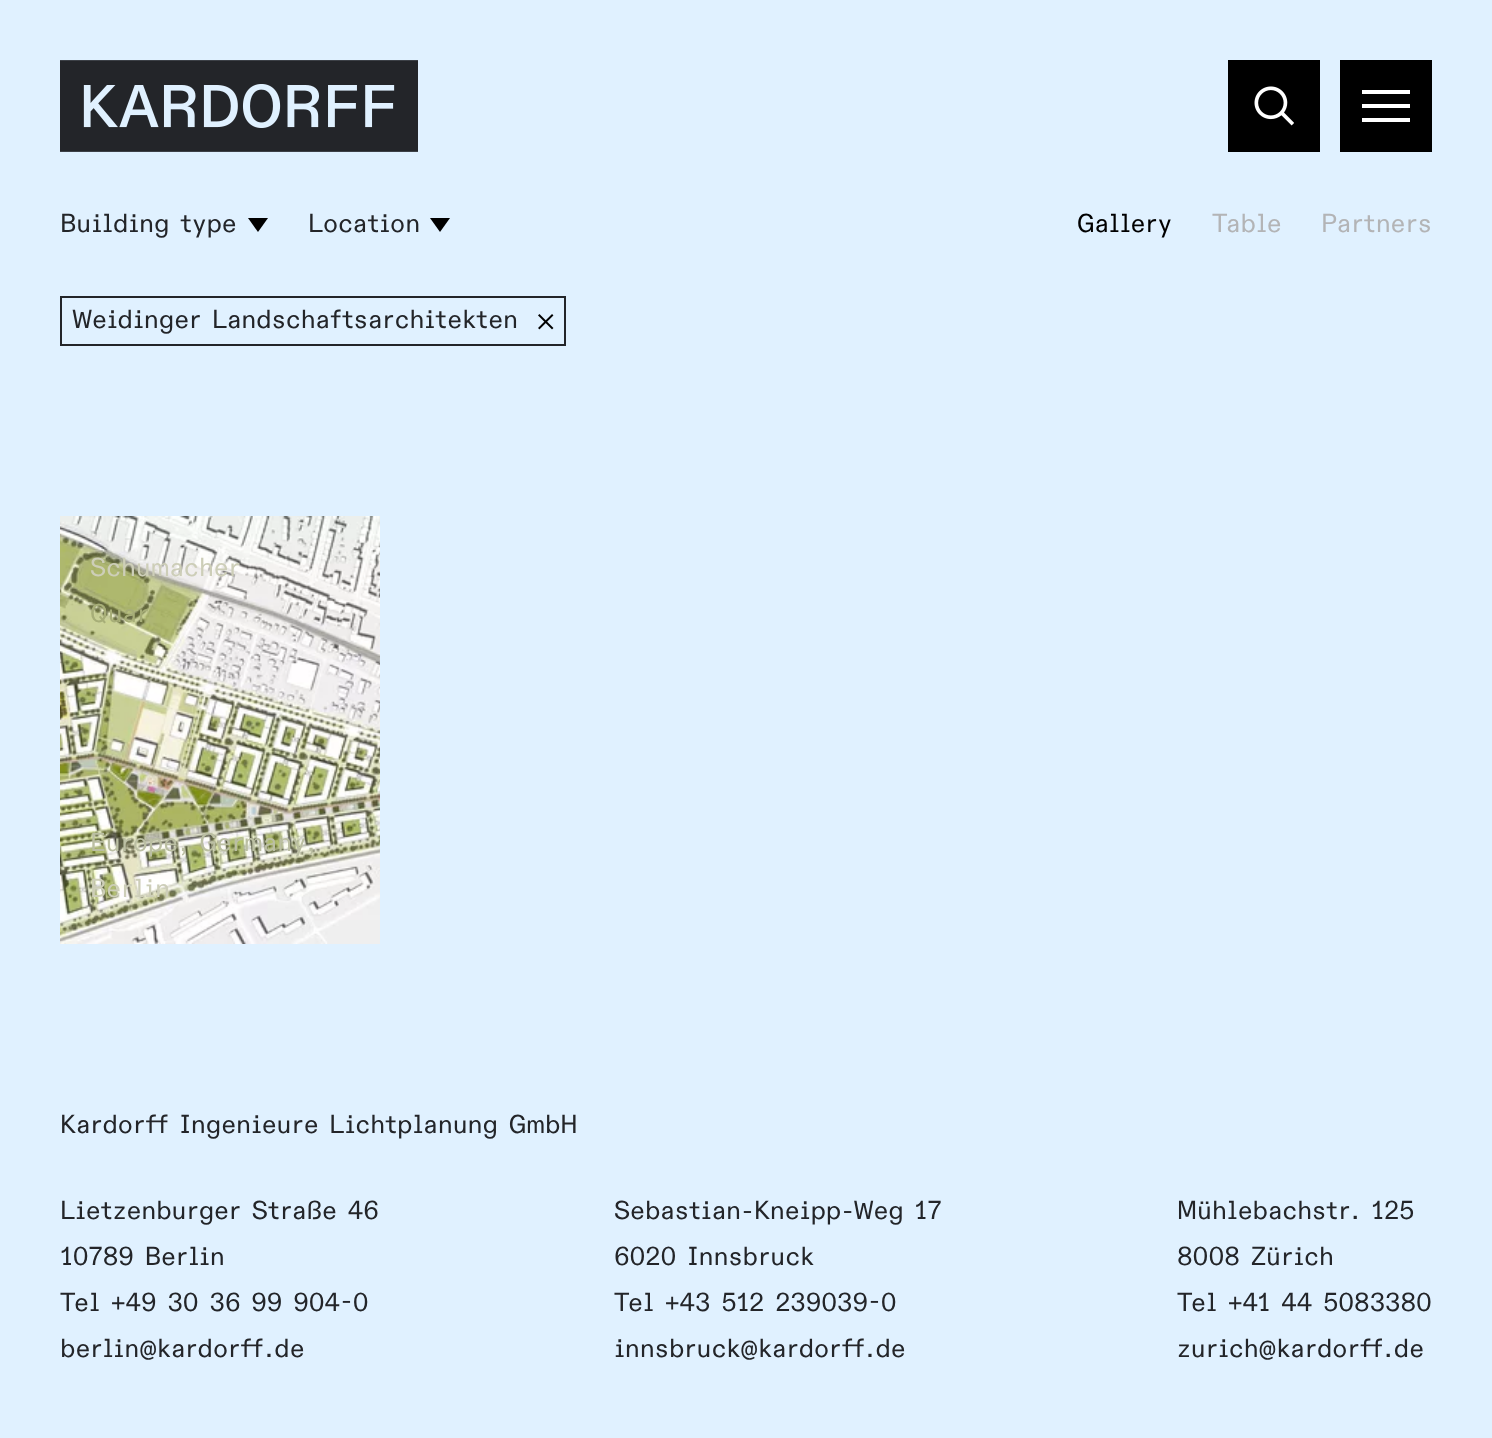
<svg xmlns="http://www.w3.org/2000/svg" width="1492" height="1438">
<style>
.a{font:26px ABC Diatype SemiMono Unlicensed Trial;fill:#232529}
.b{font:26px ABC Diatype SemiMono Unlicensed Trial;fill:#000}
.c{font:26px ABC Diatype SemiMono Unlicensed Trial;fill:#b3b4b6}
.d{font:26px ABC Diatype SemiMono Unlicensed Trial;fill:#cdceb8}
.e{font:26px ABC Diatype SemiMono Unlicensed Trial;fill:#a7ae78}
.f{font:26px ABC Diatype SemiMono Unlicensed Trial;fill:#bbbfa3}
</style>
<rect width="100%" height="100%" fill="#e0f1ff"/>
<image href="1.png" x="60" y="60" width="358" height="92"/>
<path fill="#000" d="M1228 60h92v92H1228z"/>
<image href="2.png" x="1254" y="86" width="40" height="40"/>
<path fill="#000" d="M1340 60h92v92H1340z"/>
<path fill="#fff" d="M1362 104h48v4H1362z"/>
<path fill="#fff" d="M1362 90h48v4H1362z"/>
<path fill="#fff" d="M1362 118h48v4H1362z"/>
<path fill="#000" d="M268 218l-10 14l-10-14z"/>
<path fill="#000" d="M450 218l-10 14l-10-14z"/>
<path fill="none" stroke="#232529" stroke-width="2" d="M61 297h504v48H61z"/>
<image href="3.png" x="538" y="314" width="16" height="16"/>
<image href="4.png" x="60" y="516" width="320" height="428"/>
<text class="a" x="60" y="232">Building type</text>
<text class="a" x="308" y="232">Location</text>
<text class="b" x="1077" y="232">Gallery</text>
<text class="c" x="1212" y="232">Table</text>
<text class="c" x="1321" y="232">Partners</text>
<text class="a" x="72" y="328">Weidinger Landschaftsarchitekten</text>
<text class="d" x="90" y="576">Schumacher</text>
<text class="e" x="90" y="622">Quar</text>
<text class="f" x="90" y="851">Europe, Germany,</text>
<text class="d" x="90" y="897">Berlin</text>
<text class="a" x="60" y="1133">Kardorff Ingenieure Lichtplanung GmbH</text>
<text class="a" x="60" y="1219">Lietzenburger Straße 46</text>
<text class="a" x="60" y="1265">10789 Berlin</text>
<text class="a" x="60" y="1311">Tel +49 30 36 99 904-0</text>
<text class="a" x="60" y="1357">berlin@kardorff.de</text>
<text class="a" x="614" y="1219">Sebastian-Kneipp-Weg 17</text>
<text class="a" x="614" y="1265">6020 Innsbruck</text>
<text class="a" x="614" y="1311">Tel +43 512 239039-0</text>
<text class="a" x="614" y="1357">innsbruck@kardorff.de</text>
<text class="a" x="1177" y="1219">Mühlebachstr. 125</text>
<text class="a" x="1177" y="1265">8008 Zürich</text>
<text class="a" x="1177" y="1311">Tel +41 44 5083380</text>
<text class="a" x="1177" y="1357">zurich@kardorff.de</text>
</svg>
